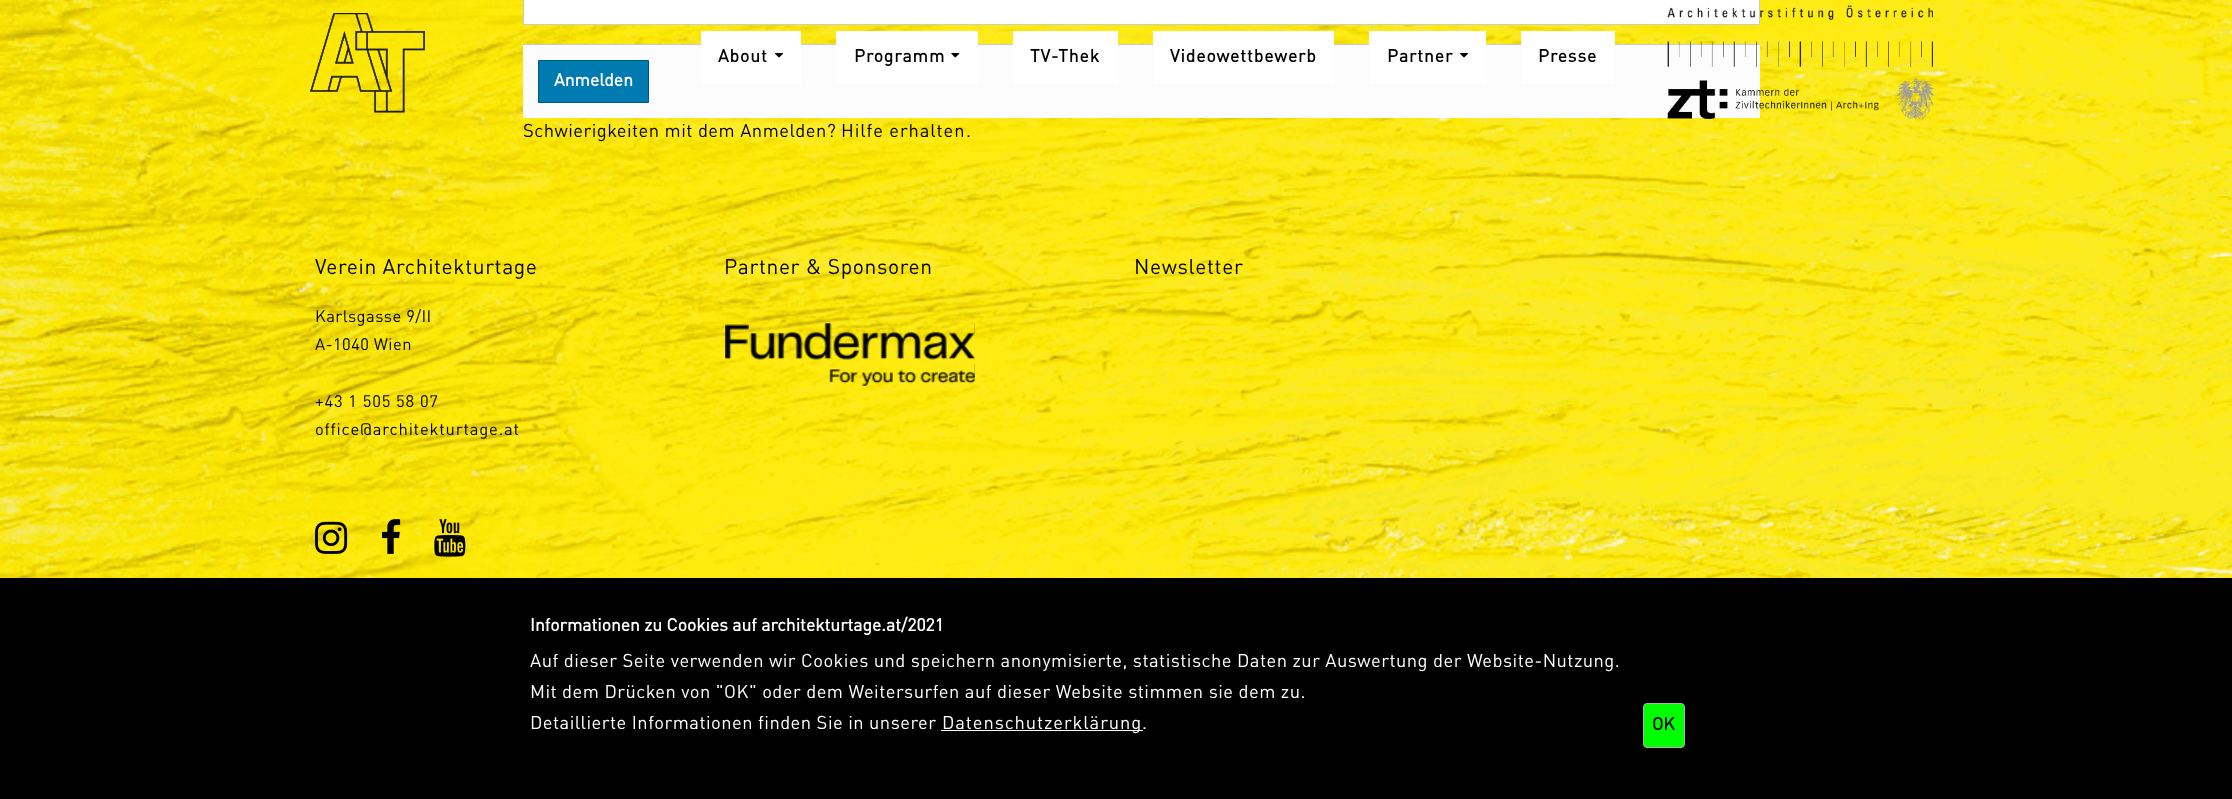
<svg xmlns="http://www.w3.org/2000/svg" width="2232" height="799">
<style>
.a{font:bold 17.5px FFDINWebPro;letter-spacing:0.9px;fill:#000}
.b{font:bold 17.5px FFDINWebPro;fill:#fff}
.c{font:18.38px FFDINWebPro;letter-spacing:0.46px;fill:#000}
.d{font:18.38px FFDINWebPro;letter-spacing:0.9px;fill:#000}
.e{font:21px FFDINWebPro;letter-spacing:0.6px;fill:#000}
.f{font:16.6px FFDINWebPro;letter-spacing:0.4px;fill:#000}
.g{font:16.6px FFDINWebPro;letter-spacing:0.8px;fill:#000}
.h{font:18.38px FFDINWebPro;letter-spacing:0.46px;fill:#fff}
.i{font:18.38px FFDINWebPro;letter-spacing:0.9px;fill:#fff}
.j{font:bold 17.5px FFDINWebPro;fill:#000}
</style>
<rect width="100%" height="100%" fill="#fff"/>
<image href="1.png" x="0" y="0" width="2232" height="578"/>
<image href="2.png" x="310" y="13" width="115" height="100"/>
<path fill="#fcfcfd" d="M523 45h1237v73H523z"/>
<path fill="#ccc" d="M523 44h1237v1H523z"/>
<path fill="#fff" d="M701 31h100v53H701z"/>
<image href="3.png" x="775" y="53" width="8" height="5"/>
<path fill="#fff" d="M836 31h142v53H836z"/>
<image href="4.png" x="951" y="53" width="9" height="5"/>
<path fill="#fff" d="M1013 31h105v53H1013z"/>
<path fill="#fff" d="M1153 31h181v53H1153z"/>
<path fill="#fff" d="M1369 31h117v53H1369z"/>
<image href="3.png" x="1460" y="53" width="8" height="5"/>
<path fill="#fff" d="M1521 31h94v53H1521z"/>
<path fill="#fff" stroke="#ccc" d="M523.5 -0.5h1236v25H523.5z"/>
<image href="5.png" x="1667" y="5" width="266" height="62"/>
<image href="6.png" x="1667" y="77" width="268" height="43"/>
<path fill="#007bb1" stroke="#00587e" d="M538.5 60.5h110v42H538.5z"/>
<image href="7.png" x="315" y="521" width="33" height="33"/>
<image href="8.png" x="382" y="519" width="19" height="35"/>
<image href="9.png" x="434" y="519" width="32" height="38"/>
<image href="10.png" x="725" y="323" width="250" height="63"/>
<image href="11.png" x="974" y="323" width="1" height="53"/>
<path fill="#000" d="M0 578h2232v221H0z"/>
<path fill="#fff" d="M941 730h202v1H941z"/>
<rect fill="#0f0" stroke="#b2b2b2" x="1643.5" y="703.5" width="41" height="44" rx="3.5"/>
<text class="a" x="718" y="62">About</text>
<text class="a" x="854" y="62">Programm</text>
<text class="a" x="1030" y="62">TV-Thek</text>
<text class="a" x="1170" y="62">Videowettbewerb</text>
<text class="a" x="1387" y="62">Partner</text>
<text class="a" x="1538" y="62">Presse</text>
<text class="b" x="554" y="86">Anmelden</text>
<text class="c" x="523" y="137">Schwierigkeiten mit dem Anmelden?</text>
<text class="d" x="841" y="137">Hilfe erhalten</text>
<text class="c" x="966" y="137">.</text>
<text class="e" x="315" y="274">Verein Architekturtage</text>
<text class="f" x="315" y="322">Karlsgasse 9/II</text>
<text class="f" x="315" y="350">A-1040 Wien</text>
<text class="g" x="315" y="407">+43 1 505 58 07</text>
<text class="g" x="315" y="435">office@architekturtage.at</text>
<text class="e" x="724" y="274">Partner &amp; Sponsoren</text>
<text class="e" x="1134" y="274">Newsletter</text>
<text class="b" x="530" y="631">Informationen zu Cookies auf architekturtage.at/2021</text>
<text class="h" x="530" y="667">Auf dieser Seite verwenden wir Cookies und speichern anonymisierte, statistische Daten zur Auswertung der Website-Nutzung.</text>
<text class="h" x="530" y="698">Mit dem Drücken von "OK" oder dem Weitersurfen auf dieser Website stimmen sie dem zu.</text>
<text class="h" x="530" y="729">Detaillierte Informationen finden Sie in unserer</text>
<text class="i" x="942" y="729">Datenschutzerklärung</text>
<text class="h" x="1142" y="729">.</text>
<text class="j" x="1652" y="730">OK</text>
</svg>
